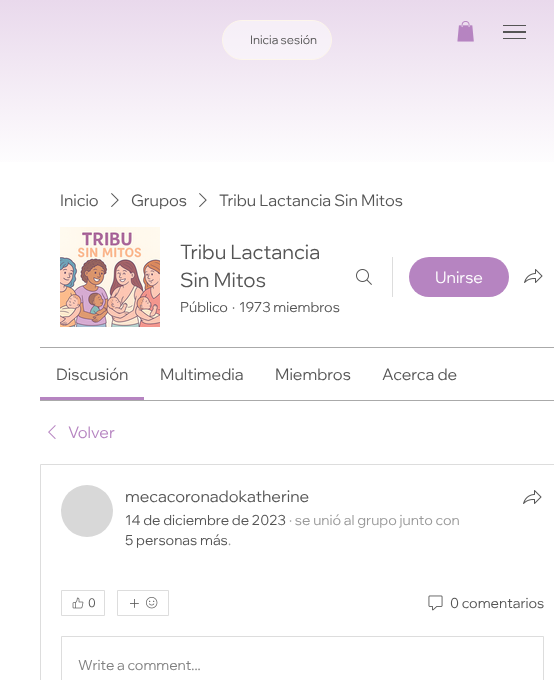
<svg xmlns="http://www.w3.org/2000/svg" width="554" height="680">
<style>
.a{font:12px Wix Madefor Display;fill:#555}
.b{font:16px Wix Madefor Display;fill:#555}
.c{font:20px Wix Madefor Display;fill:#555}
.d{font:14px Wix Madefor Display;fill:#555}
.e{font:16px Wix Madefor Display;fill:#fff}
.f{font:16px Wix Madefor Display;fill:#b684c1}
.g{font:14px Wix Madefor Display;fill:#999}
.h{font:14px Wix Madefor Display;fill:#808080}
</style>
<defs>
<linearGradient id="g1" gradientUnits="userSpaceOnUse" x1="277" y1="173" x2="277" y2="0"><stop offset="0" stop-color="#fff"/><stop offset="1" stop-color="#e9d9ec"/></linearGradient>
</defs>
<rect width="100%" height="100%" fill="#fff"/>
<path fill="url(#g1)" d="M0 0h554v162H0z"/>
<rect fill="#ffffff80" stroke="#fdf6eb" x="222.5" y="20.5" width="109" height="39" rx="19.5"/>
<image href="1.png" x="457" y="21" width="17" height="21"/>
<path fill="#555" d="M503 25h23v1H503z"/>
<path fill="#555" d="M503 31h23v2H503z"/>
<path fill="#555" d="M503 38h23v1H503z"/>
<image href="2.png" x="111" y="193" width="8" height="14"/>
<image href="2.png" x="199" y="193" width="8" height="14"/>
<image href="3.png" x="60" y="227" width="100" height="100"/>
<image href="4.png" x="356" y="269" width="16" height="16"/>
<path fill="#ddd" d="M392 257h1v40H392z"/>
<rect fill="#b684c1" x="409" y="257" width="100" height="40" rx="20"/>
<image href="5.png" x="524" y="269" width="19" height="14"/>
<path fill="#aaa" d="M40 347h514v1H40z"/>
<path fill="#aaa" d="M40 400h514v1H40z"/>
<path fill="#b684c1" d="M40 397h104v3H40z"/>
<image href="6.png" x="48" y="425" width="8" height="14"/>
<path fill="none" stroke="#ddd" d="M40.5 464.5h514v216H40.5z"/>
<circle fill="#d8d8d8" cx="87" cy="511" r="26"/>
<image href="5.png" x="523" y="490" width="19" height="14"/>
<path fill="none" stroke="#ddd" d="M61.5 590.5h43v25H61.5z"/>
<image href="7.png" x="72" y="597" width="12" height="12"/>
<path fill="none" stroke="#ddd" d="M117.5 590.5h51v25H117.5z"/>
<image href="8.png" x="130" y="599" width="9" height="9"/>
<image href="9.png" x="146" y="597" width="12" height="12"/>
<image href="10.png" x="428" y="595" width="15" height="16"/>
<path fill="none" stroke="#ddd" d="M61.5 636.5h482v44H61.5z"/>
<text class="a" x="250" y="44">Inicia sesión</text>
<text class="b" x="60" y="206">Inicio</text>
<text class="b" x="131" y="206">Grupos</text>
<text class="b" x="219" y="206">Tribu Lactancia Sin Mitos</text>
<text class="c" x="180" y="259">Tribu Lactancia</text>
<text class="c" x="180" y="287">Sin Mitos</text>
<text class="d" x="180" y="312">Público</text>
<text class="d" x="232" y="312">·</text>
<text class="d" x="239" y="312">1973 miembros</text>
<text class="e" x="435" y="283">Unirse</text>
<text class="b" x="56" y="380">Discusión</text>
<text class="b" x="160" y="380">Multimedia</text>
<text class="b" x="275" y="380">Miembros</text>
<text class="b" x="382" y="380">Acerca de</text>
<text class="f" x="68" y="438">Volver</text>
<text class="b" x="125" y="502">mecacoronadokatherine</text>
<text class="d" x="125" y="525">14 de diciembre de 2023</text>
<text class="g" x="289" y="525">· se unió al grupo junto con</text>
<text class="d" x="125" y="545">5 personas más</text>
<text class="g" x="228" y="545">.</text>
<text class="a" x="88" y="607">0</text>
<text class="d" x="450" y="608">0 comentarios</text>
<text class="h" x="78" y="670">Write a comment...</text>
</svg>
